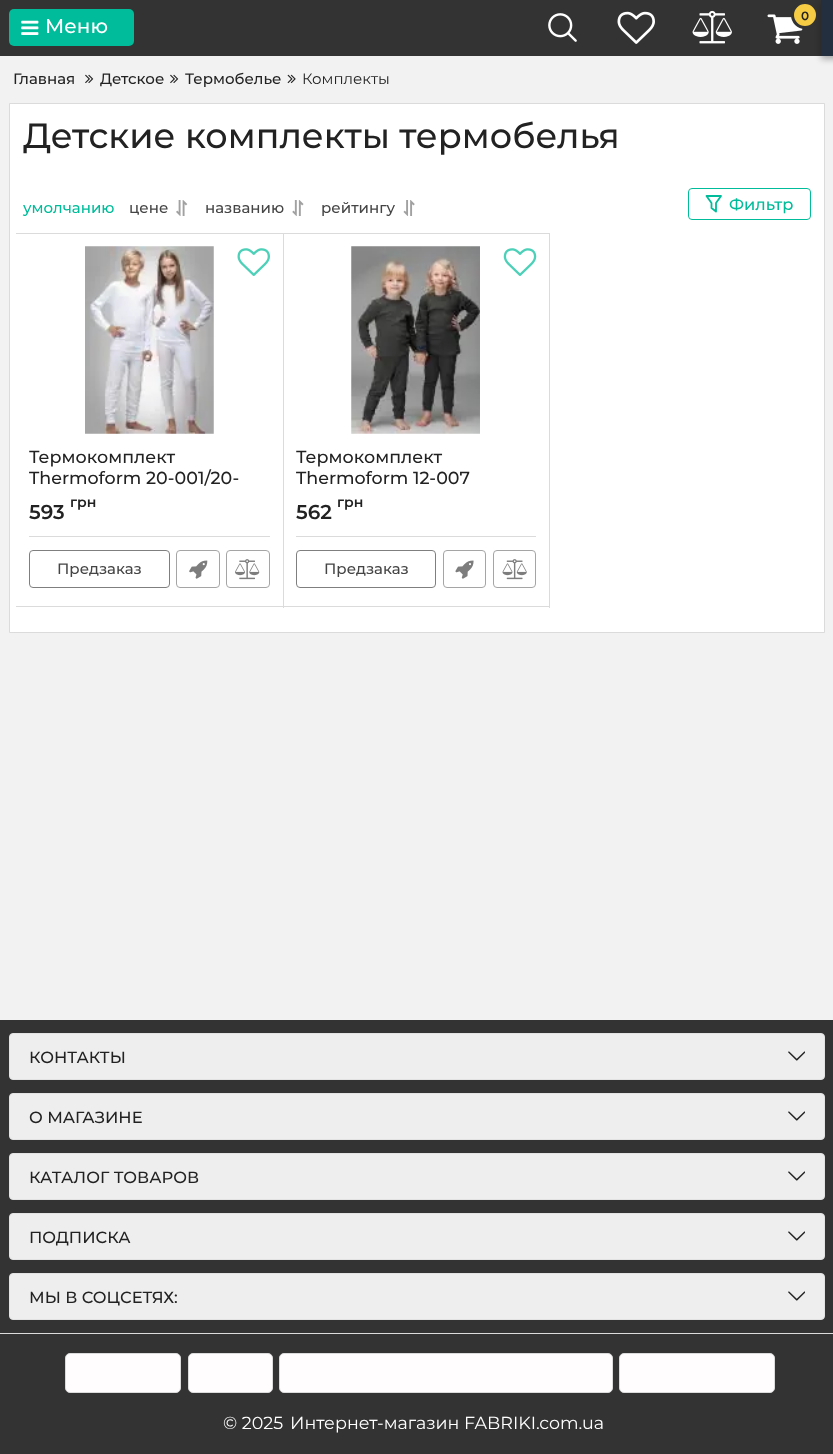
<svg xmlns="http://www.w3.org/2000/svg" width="833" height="1454">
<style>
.a{font:600 12px Montserrat;fill:#222}
.b{font:500 20px Montserrat;fill:#fff}
.c{font:500 15px Montserrat;fill:#222}
.d{font:15px Montserrat;fill:#222}
.e{font:500 35px Montserrat;fill:#222}
.f{font:500 15px Montserrat;fill:#00bc9a}
.g{font:500 15px Montserrat;fill:#454545}
.h{font:500 16.25px Montserrat;fill:#00bc9a}
.i{font:500 17.5px Montserrat;fill:#222}
.j{font:600 20px Montserrat;fill:#222}
.k{font:600 14px Montserrat;fill:#222}
.l{font:500 16.25px Montserrat;fill:#222}
.m{font:17.5px Montserrat;fill:#fff}
</style>
<rect width="100%" height="100%" fill="#f2f2f2"/>
<path fill="#333" d="M0 0h821v56H0z"/>
<image href="1.png" x="548" y="13" width="29" height="29"/>
<image href="2.png" x="617" y="11" width="38" height="33"/>
<image href="3.png" x="692" y="10" width="40" height="34"/>
<image href="4.png" x="767" y="14" width="36" height="30"/>
<circle fill="#f5cc43" stroke="#333" stroke-width="3" cx="805" cy="15" r="12.5"/>
<rect fill="#00bc9a" x="9" y="9" width="125" height="37" rx="5"/>
<image href="5.png" x="21" y="20" width="18" height="15"/>
<image href="6.png" x="85" y="74" width="9" height="10"/>
<image href="6.png" x="170" y="74" width="9" height="10"/>
<image href="7.png" x="287" y="74" width="9" height="10"/>
<path fill="#0000004d" filter="blur(3px)" d="M821 3h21v56H821z"/>
<path fill="#232f3e" d="M821 0h12v56H821z"/>
<path fill="#fff" stroke="#dbdbdb" d="M9.5 103.5h815v529H9.5z"/>
<image href="8.png" x="176" y="200" width="12" height="16"/>
<image href="9.png" x="292" y="200" width="12" height="16"/>
<image href="10.png" x="403" y="200" width="12" height="16"/>
<rect fill="none" stroke="#00bc9a" x="688.5" y="188.5" width="122" height="31" rx="3.5"/>
<path fill="none" stroke="#00bc9a" stroke-width="1.8" stroke-linecap="round" stroke-linejoin="round" d="M706.5 196h14.5l-5 7v8.5l-4.5-3.5v-5z"/>
<path fill="#dbdbdb" d="M16 233h534v1H16z"/>
<path fill="#dbdbdb" d="M283 233h1v375H283z"/>
<path fill="#dbdbdb" d="M16 606h268v1H16z"/>
<image href="11.png" x="85" y="246" width="129" height="188"/>
<image href="12.png" x="237" y="248" width="33" height="28"/>
<path fill="#dbdbdb" d="M29 536h241v1H29z"/>
<rect fill="none" stroke="#7f7f7f" x="29.5" y="550.5" width="140" height="37" rx="3.5"/>
<rect fill="none" stroke="#a5a5a5" x="176.5" y="550.5" width="43" height="37" rx="3.5"/>
<image href="13.png" x="189" y="560" width="19" height="19"/>
<rect fill="none" stroke="#a5a5a5" x="226.5" y="550.5" width="43" height="37" rx="3.5"/>
<image href="14.png" x="235" y="559" width="25" height="21"/>
<path fill="#dbdbdb" d="M549 233h1v375H549z"/>
<path fill="#dbdbdb" d="M284 606h266v1H284z"/>
<image href="15.png" x="351" y="246" width="129" height="188"/>
<image href="16.png" x="503" y="248" width="34" height="28"/>
<path fill="#dbdbdb" d="M296 536h240v1H296z"/>
<rect fill="none" stroke="#7f7f7f" x="296.5" y="550.5" width="139" height="37" rx="3.5"/>
<rect fill="none" stroke="#a5a5a5" x="443.5" y="550.5" width="42" height="37" rx="3.5"/>
<image href="17.png" x="455" y="560" width="19" height="19"/>
<rect fill="none" stroke="#a5a5a5" x="493.5" y="550.5" width="42" height="37" rx="3.5"/>
<image href="18.png" x="502" y="559" width="25" height="21"/>
<path fill="#333" d="M0 1020h833v434H0z"/>
<rect fill="#eee" stroke="#e2e2e2" x="9.5" y="1033.5" width="815" height="46" rx="3.5"/>
<image href="19.png" x="788" y="1051" width="17" height="10"/>
<rect fill="#eee" stroke="#e2e2e2" x="9.5" y="1093.5" width="815" height="46" rx="3.5"/>
<image href="19.png" x="788" y="1111" width="17" height="10"/>
<rect fill="#eee" stroke="#e2e2e2" x="9.5" y="1153.5" width="815" height="46" rx="3.5"/>
<image href="19.png" x="788" y="1171" width="17" height="10"/>
<rect fill="#eee" stroke="#e2e2e2" x="9.5" y="1213.5" width="815" height="46" rx="3.5"/>
<image href="19.png" x="788" y="1231" width="17" height="10"/>
<rect fill="#eee" stroke="#e2e2e2" x="9.5" y="1273.5" width="815" height="46" rx="3.5"/>
<image href="19.png" x="788" y="1291" width="17" height="10"/>
<path fill="#dbdbdb" d="M0 1333h833v1H0z"/>
<rect fill="#fffdfd" stroke="#dbdbdb" x="65.5" y="1353.5" width="115" height="39" rx="4.5"/>
<rect fill="#fffdfd" stroke="#dbdbdb" x="188.5" y="1353.5" width="84" height="39" rx="4.5"/>
<rect fill="#fffdfd" stroke="#dbdbdb" x="279.5" y="1353.5" width="333" height="39" rx="4.5"/>
<rect fill="#fffdfd" stroke="#dbdbdb" x="619.5" y="1353.5" width="155" height="39" rx="4.5"/>
<text class="a" x="801" y="20">0</text>
<text class="b" x="45" y="33">Меню</text>
<text class="c" x="13" y="84">Главная</text>
<text class="c" x="100" y="84">Детское</text>
<text class="c" x="185" y="84">Термобелье</text>
<text class="d" x="302" y="84">Комплекты</text>
<text class="e" x="23" y="148">Детские комплекты термобелья</text>
<text class="f" x="23" y="213">умолчанию</text>
<text class="g" x="129" y="213">цене</text>
<text class="g" x="205" y="213">названию</text>
<text class="g" x="321" y="213">рейтингу</text>
<text class="h" x="729" y="210">Фильтр</text>
<text class="i" x="29" y="463">Термокомплект</text>
<text class="i" x="29" y="484">Thermoform 20-001/20-</text>
<text class="j" x="29" y="519">593</text>
<text class="k" x="70" y="507">грн</text>
<text class="g" x="57" y="574">Предзаказ</text>
<text class="i" x="296" y="463">Термокомплект</text>
<text class="i" x="296" y="484">Thermoform 12-007</text>
<text class="j" x="296" y="519">562</text>
<text class="k" x="337" y="507">грн</text>
<text class="g" x="324" y="574">Предзаказ</text>
<text class="l" x="29" y="1063">КОНТАКТЫ</text>
<text class="l" x="29" y="1123">О МАГАЗИНЕ</text>
<text class="l" x="29" y="1183">КАТАЛОГ ТОВАРОВ</text>
<text class="l" x="29" y="1243">ПОДПИСКА</text>
<text class="l" x="29" y="1303">МЫ В СОЦСЕТЯХ:</text>
<text class="m" x="223" y="1429">© 2025</text>
<text class="m" x="290" y="1429">Интернет-магазин FABRIKI.com.ua</text>
</svg>
